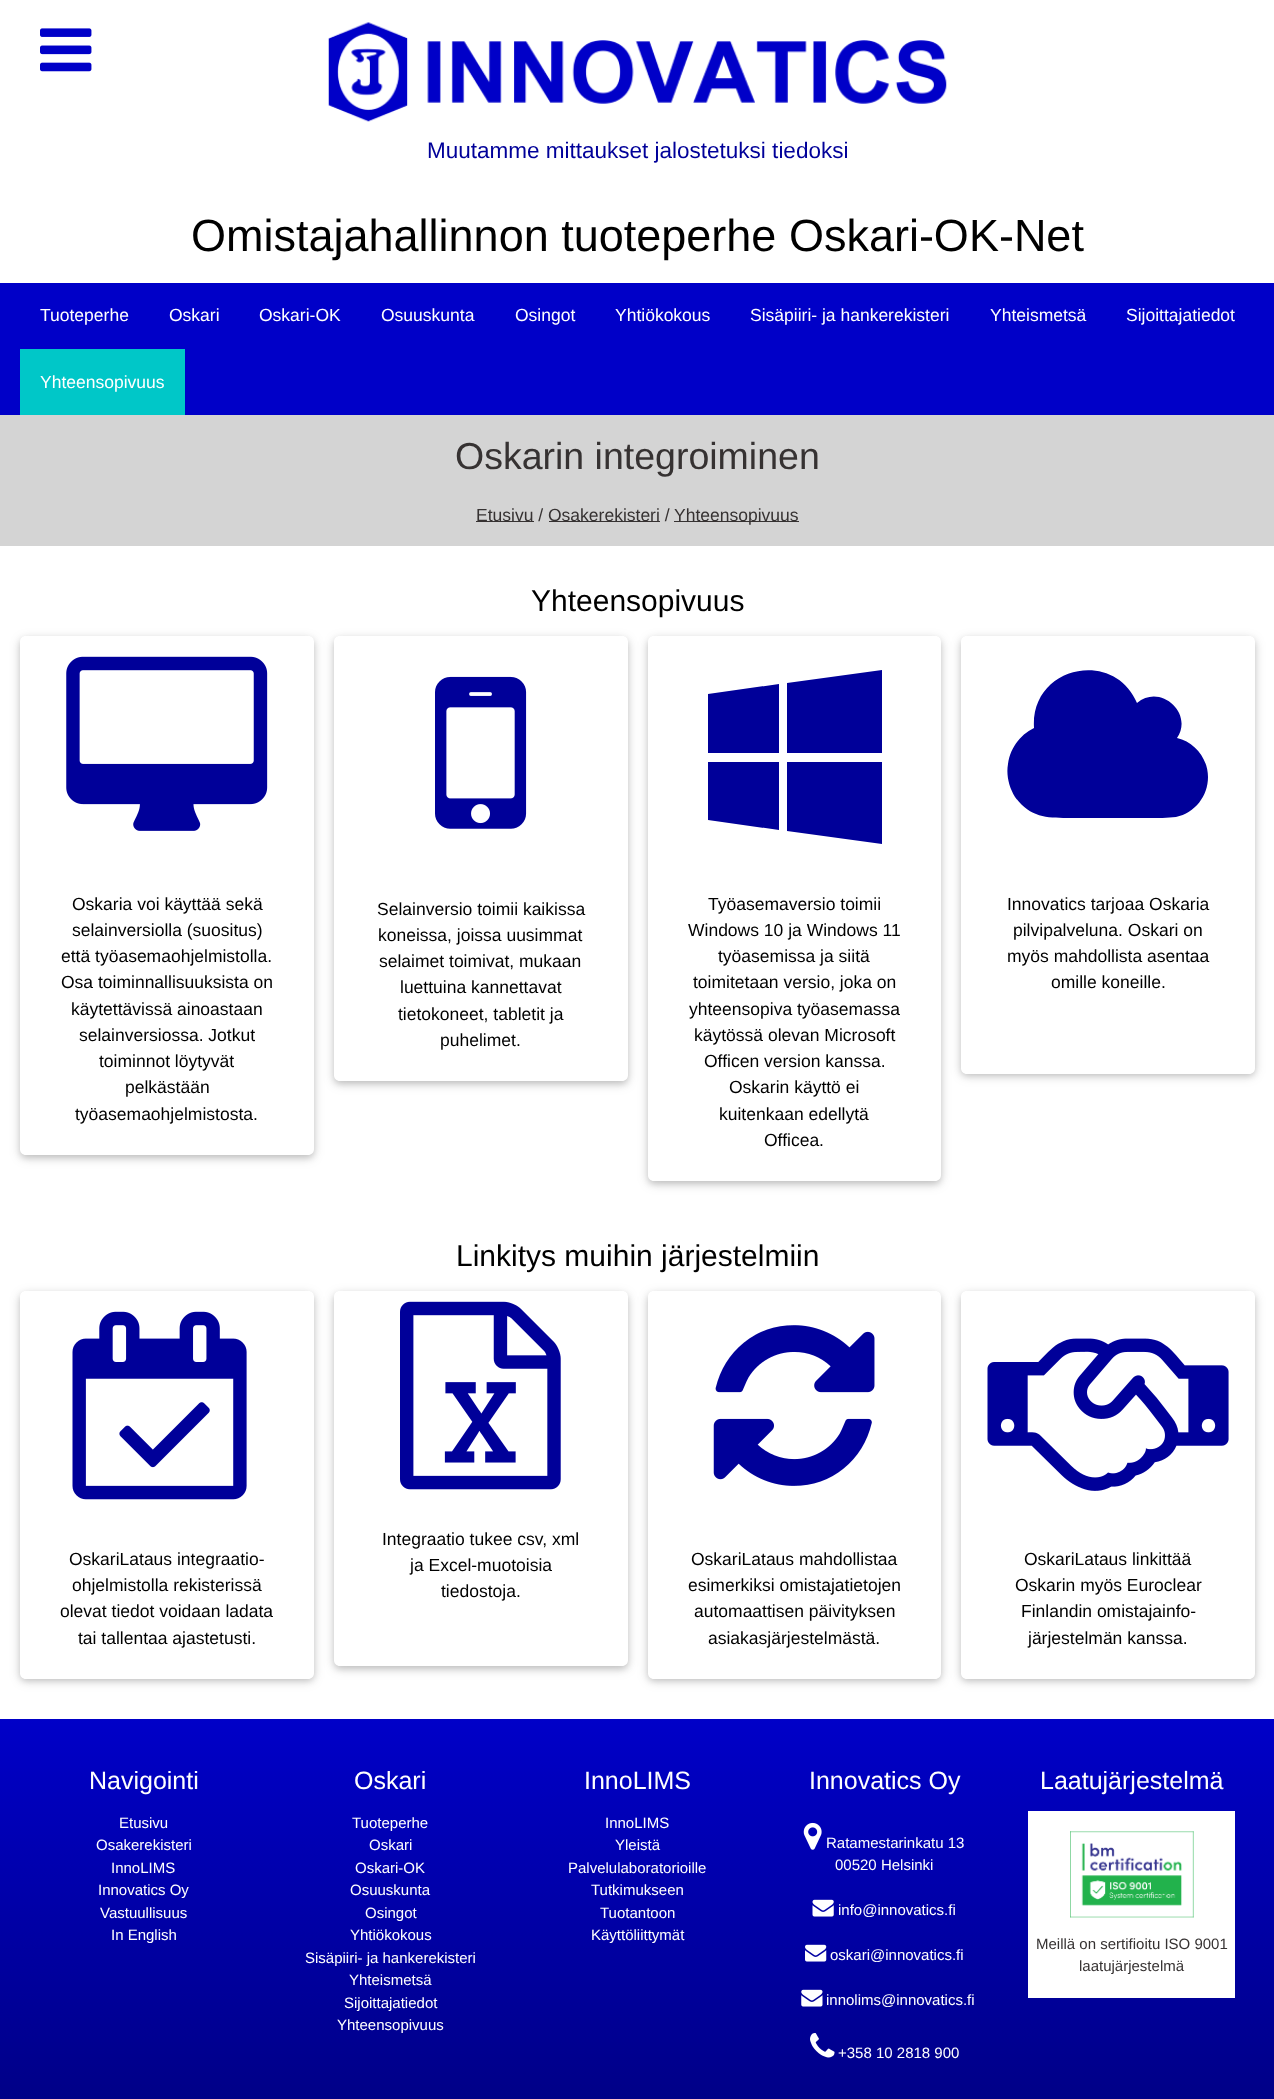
<svg xmlns="http://www.w3.org/2000/svg" width="1274" height="2099">
<style>
.a{font:22.5px Liberation Sans;fill:#009}
.b{font:45px Liberation Sans;fill:#000}
.c{font:17.5px Liberation Sans;fill:#fff}
.d{font:37.5px Liberation Sans;fill:#363232}
.e{font:17.5px Liberation Sans;fill:#363232}
.f{font:30px Liberation Sans;fill:#000}
.g{font:17.5px Liberation Sans;fill:#000}
.h{font:25px Liberation Sans;fill:#fff}
.i{font:15px Liberation Sans;fill:#fff}
.j{font:15px Liberation Sans;fill:#363232}
</style>
<defs>
<clipPath id="clip1"><path d="M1 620h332v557h-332zm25 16h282c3.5 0 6 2.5 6 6v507c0 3.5-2.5 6-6 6h-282c-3.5 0-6-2.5-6-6v-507c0-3.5 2.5-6 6-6z" clip-rule="evenodd"/></clipPath>
<clipPath id="clip2"><path d="M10 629h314v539h-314zm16 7h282c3.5 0 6 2.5 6 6v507c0 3.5-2.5 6-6 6h-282c-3.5 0-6-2.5-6-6v-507c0-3.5 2.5-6 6-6z" clip-rule="evenodd"/></clipPath>
<clipPath id="clip3"><path d="M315 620h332v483h-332zm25 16h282c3.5 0 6 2.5 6 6v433c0 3.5-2.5 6-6 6h-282c-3.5 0-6-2.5-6-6v-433c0-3.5 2.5-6 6-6z" clip-rule="evenodd"/></clipPath>
<clipPath id="clip4"><path d="M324 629h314v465h-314zm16 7h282c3.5 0 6 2.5 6 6v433c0 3.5-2.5 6-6 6h-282c-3.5 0-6-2.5-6-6v-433c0-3.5 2.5-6 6-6z" clip-rule="evenodd"/></clipPath>
<clipPath id="clip5"><path d="M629 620h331v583h-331zm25 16h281c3.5 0 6 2.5 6 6v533c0 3.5-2.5 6-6 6h-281c-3.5 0-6-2.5-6-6v-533c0-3.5 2.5-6 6-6z" clip-rule="evenodd"/></clipPath>
<clipPath id="clip6"><path d="M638 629h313v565h-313zm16 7h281c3.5 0 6 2.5 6 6v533c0 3.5-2.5 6-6 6h-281c-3.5 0-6-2.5-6-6v-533c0-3.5 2.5-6 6-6z" clip-rule="evenodd"/></clipPath>
<clipPath id="clip7"><path d="M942 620h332v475h-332zm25 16h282c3.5 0 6 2.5 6 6v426c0 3.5-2.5 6-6 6h-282c-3.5 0-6-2.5-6-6v-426c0-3.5 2.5-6 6-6z" clip-rule="evenodd"/></clipPath>
<clipPath id="clip8"><path d="M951 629h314v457h-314zm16 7h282c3.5 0 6 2.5 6 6v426c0 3.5-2.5 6-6 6h-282c-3.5 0-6-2.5-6-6v-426c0-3.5 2.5-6 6-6z" clip-rule="evenodd"/></clipPath>
<clipPath id="clip9"><path d="M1 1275h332v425h-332zm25 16h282c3.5 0 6 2.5 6 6v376c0 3.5-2.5 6-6 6h-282c-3.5 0-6-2.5-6-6v-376c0-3.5 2.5-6 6-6z" clip-rule="evenodd"/></clipPath>
<clipPath id="clip10"><path d="M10 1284h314v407h-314zm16 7h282c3.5 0 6 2.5 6 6v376c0 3.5-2.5 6-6 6h-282c-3.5 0-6-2.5-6-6v-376c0-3.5 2.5-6 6-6z" clip-rule="evenodd"/></clipPath>
<clipPath id="clip11"><path d="M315 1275h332v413h-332zm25 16h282c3.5 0 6 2.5 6 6v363c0 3.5-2.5 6-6 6h-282c-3.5 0-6-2.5-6-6v-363c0-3.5 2.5-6 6-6z" clip-rule="evenodd"/></clipPath>
<clipPath id="clip12"><path d="M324 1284h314v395h-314zm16 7h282c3.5 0 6 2.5 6 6v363c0 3.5-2.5 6-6 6h-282c-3.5 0-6-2.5-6-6v-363c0-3.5 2.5-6 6-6z" clip-rule="evenodd"/></clipPath>
<clipPath id="clip13"><path d="M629 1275h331v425h-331zm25 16h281c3.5 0 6 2.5 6 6v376c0 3.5-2.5 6-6 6h-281c-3.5 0-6-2.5-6-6v-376c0-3.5 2.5-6 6-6z" clip-rule="evenodd"/></clipPath>
<clipPath id="clip14"><path d="M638 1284h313v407h-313zm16 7h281c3.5 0 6 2.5 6 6v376c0 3.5-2.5 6-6 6h-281c-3.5 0-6-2.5-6-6v-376c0-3.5 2.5-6 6-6z" clip-rule="evenodd"/></clipPath>
<clipPath id="clip15"><path d="M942 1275h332v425h-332zm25 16h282c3.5 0 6 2.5 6 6v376c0 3.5-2.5 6-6 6h-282c-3.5 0-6-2.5-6-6v-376c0-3.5 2.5-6 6-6z" clip-rule="evenodd"/></clipPath>
<clipPath id="clip16"><path d="M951 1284h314v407h-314zm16 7h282c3.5 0 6 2.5 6 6v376c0 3.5-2.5 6-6 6h-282c-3.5 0-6-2.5-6-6v-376c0-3.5 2.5-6 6-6z" clip-rule="evenodd"/></clipPath>
<linearGradient id="g1" gradientUnits="userSpaceOnUse" x1="638" y1="1719" x2="638" y2="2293"><stop offset="0" stop-color="#0000c8"/><stop offset="1" stop-color="#006"/></linearGradient>
</defs>
<rect width="100%" height="100%" fill="#fff"/>
<image href="1.png" x="40" y="28" width="52" height="44"/>
<image href="2.png" x="328" y="22" width="619" height="100"/>
<path fill="#0000c8" d="M0 283h1274v132H0z"/>
<path fill="#00c7c8" d="M20 349h165v66H20z"/>
<path fill="#d4d4d4" d="M0 415h1274v131H0z"/>
<path fill="#363232" d="M476 521h58v1H476z"/>
<path fill="#363232" d="M549 521h111v1H549z"/>
<path fill="#363232" d="M674 521h125v1H674z"/>
<g clip-path="url(#clip1)">
<rect fill="#0000001f" filter="blur(6px)" x="20" y="639" width="294" height="519" rx="6"/>
</g>
<g clip-path="url(#clip2)">
<rect fill="#00000029" filter="blur(3px)" x="20" y="639" width="294" height="519" rx="6"/>
</g>
<image href="3.png" x="66" y="656" width="202" height="175"/>
<g clip-path="url(#clip3)">
<rect fill="#0000001f" filter="blur(6px)" x="334" y="639" width="294" height="445" rx="6"/>
</g>
<g clip-path="url(#clip4)">
<rect fill="#00000029" filter="blur(3px)" x="334" y="639" width="294" height="445" rx="6"/>
</g>
<image href="4.png" x="435" y="676" width="92" height="153"/>
<g clip-path="url(#clip5)">
<rect fill="#0000001f" filter="blur(6px)" x="648" y="639" width="293" height="545" rx="6"/>
</g>
<g clip-path="url(#clip6)">
<rect fill="#00000029" filter="blur(3px)" x="648" y="639" width="293" height="545" rx="6"/>
</g>
<path fill="#009" d="M779 762v68l-71-10v-58zm0-78v69h-71v-59zm103 78v82l-95-13v-69zm0-92v83h-95v-70z"/>
<g clip-path="url(#clip7)">
<rect fill="#0000001f" filter="blur(6px)" x="961" y="639" width="294" height="437" rx="6"/>
</g>
<g clip-path="url(#clip8)">
<rect fill="#00000029" filter="blur(3px)" x="961" y="639" width="294" height="437" rx="6"/>
</g>
<path fill="#009" d="M1208 777c0 19-13 36-32 40c-8 1-19 1-27 1h-76c-24 0-42 1-58-21c-6-10-9-22-7-33c2-16 12-29 26-36c-4-62 80-80 103-25c23-20 57 10 40 35c18 4 31 21 31 39z"/>
<g clip-path="url(#clip9)">
<rect fill="#0000001f" filter="blur(6px)" x="20" y="1294" width="294" height="387" rx="6"/>
</g>
<g clip-path="url(#clip10)">
<rect fill="#00000029" filter="blur(3px)" x="20" y="1294" width="294" height="387" rx="6"/>
</g>
<image href="5.png" x="72" y="1311" width="175" height="189"/>
<g clip-path="url(#clip11)">
<rect fill="#0000001f" filter="blur(6px)" x="334" y="1294" width="294" height="375" rx="6"/>
</g>
<g clip-path="url(#clip12)">
<rect fill="#00000029" filter="blur(3px)" x="334" y="1294" width="294" height="375" rx="6"/>
</g>
<image href="6.png" x="400" y="1301" width="161" height="189"/>
<g clip-path="url(#clip13)">
<rect fill="#0000001f" filter="blur(6px)" x="648" y="1294" width="293" height="387" rx="6"/>
</g>
<g clip-path="url(#clip14)">
<rect fill="#00000029" filter="blur(3px)" x="648" y="1294" width="293" height="387" rx="6"/>
</g>
<image href="7.png" x="713" y="1325" width="162" height="161"/>
<g clip-path="url(#clip15)">
<rect fill="#0000001f" filter="blur(6px)" x="961" y="1294" width="294" height="387" rx="6"/>
</g>
<g clip-path="url(#clip16)">
<rect fill="#00000029" filter="blur(3px)" x="961" y="1294" width="294" height="387" rx="6"/>
</g>
<image href="8.png" x="987" y="1338" width="242" height="153"/>
<path fill="url(#g1)" d="M0 1719h1274v380H0z"/>
<image href="9.png" x="803" y="1822" width="19" height="28"/>
<image href="10.png" x="812" y="1899" width="22" height="18"/>
<image href="11.png" x="805" y="1944" width="22" height="18"/>
<image href="12.png" x="801" y="1989" width="22" height="18"/>
<image href="13.png" x="810" y="2033" width="25" height="25"/>
<path fill="#fff" d="M1028 1811h207v187H1028z"/>
<image href="14.png" x="1070" y="1831" width="124" height="87"/>
<text class="a" x="427" y="158">Muutamme mittaukset jalostetuksi tiedoksi</text>
<text class="b" x="191" y="251">Omistajahallinnon tuoteperhe Oskari-OK-Net</text>
<text class="c" x="40" y="321">Tuoteperhe</text>
<text class="c" x="169" y="321">Oskari</text>
<text class="c" x="259" y="321">Oskari-OK</text>
<text class="c" x="381" y="321">Osuuskunta</text>
<text class="c" x="515" y="321">Osingot</text>
<text class="c" x="615" y="321">Yhtiökokous</text>
<text class="c" x="750" y="321">Sisäpiiri- ja hankerekisteri</text>
<text class="c" x="990" y="321">Yhteismetsä</text>
<text class="c" x="1126" y="321">Sijoittajatiedot</text>
<text class="c" x="40" y="388">Yhteensopivuus</text>
<text class="d" x="455" y="469">Oskarin integroiminen</text>
<text class="e" x="476" y="521">Etusivu /</text>
<text class="e" x="548" y="521">Osakerekisteri /</text>
<text class="e" x="674" y="521">Yhteensopivuus</text>
<text class="f" x="531" y="611">Yhteensopivuus</text>
<text class="g" x="72" y="910">Oskaria voi käyttää sekä</text>
<text class="g" x="72" y="936">selainversiolla (suositus)</text>
<text class="g" x="61" y="962">että työasemaohjelmistolla.</text>
<text class="g" x="61" y="988">Osa toiminnallisuuksista on</text>
<text class="g" x="71" y="1015">käytettävissä ainoastaan</text>
<text class="g" x="79" y="1041">selainversiossa. Jotkut</text>
<text class="g" x="99" y="1067">toiminnot löytyvät</text>
<text class="g" x="125" y="1093">pelkästään</text>
<text class="g" x="75" y="1120">työasemaohjelmistosta.</text>
<text class="g" x="377" y="915">Selainversio toimii kaikissa</text>
<text class="g" x="378" y="941">koneissa, joissa uusimmat</text>
<text class="g" x="379" y="967">selaimet toimivat, mukaan</text>
<text class="g" x="400" y="993">luettuina kannettavat</text>
<text class="g" x="398" y="1020">tietokoneet, tabletit ja</text>
<text class="g" x="440" y="1046">puhelimet.</text>
<text class="g" x="708" y="910">Työasemaversio toimii</text>
<text class="g" x="688" y="936">Windows 10 ja Windows 11</text>
<text class="g" x="718" y="962">työasemissa ja siitä</text>
<text class="g" x="693" y="988">toimitetaan versio, joka on</text>
<text class="g" x="689" y="1015">yhteensopiva työasemassa</text>
<text class="g" x="694" y="1041">käytössä olevan Microsoft</text>
<text class="g" x="704" y="1067">Officen version kanssa.</text>
<text class="g" x="729" y="1093">Oskarin käyttö ei</text>
<text class="g" x="719" y="1120">kuitenkaan edellytä</text>
<text class="g" x="764" y="1146">Officea.</text>
<text class="g" x="1007" y="910">Innovatics tarjoaa Oskaria</text>
<text class="g" x="1013" y="936">pilvipalveluna. Oskari on</text>
<text class="g" x="1007" y="962">myös mahdollista asentaa</text>
<text class="g" x="1051" y="988">omille koneille.</text>
<text class="f" x="456" y="1266">Linkitys muihin järjestelmiin</text>
<text class="g" x="69" y="1565">OskariLataus integraatio-</text>
<text class="g" x="72" y="1591">ohjelmistolla rekisterissä</text>
<text class="g" x="60" y="1617">olevat tiedot voidaan ladata</text>
<text class="g" x="78" y="1644">tai tallentaa ajastetusti.</text>
<text class="g" x="382" y="1545">Integraatio tukee csv, xml</text>
<text class="g" x="410" y="1571">ja Excel-muotoisia</text>
<text class="g" x="441" y="1597">tiedostoja.</text>
<text class="g" x="691" y="1565">OskariLataus mahdollistaa</text>
<text class="g" x="688" y="1591">esimerkiksi omistajatietojen</text>
<text class="g" x="694" y="1617">automaattisen päivityksen</text>
<text class="g" x="708" y="1644">asiakasjärjestelmästä.</text>
<text class="g" x="1024" y="1565">OskariLataus linkittää</text>
<text class="g" x="1015" y="1591">Oskarin myös Euroclear</text>
<text class="g" x="1021" y="1617">Finlandin omistajainfo-</text>
<text class="g" x="1028" y="1644">järjestelmän kanssa.</text>
<text class="h" x="89" y="1789">Navigointi</text>
<text class="i" x="119" y="1828">Etusivu</text>
<text class="i" x="96" y="1850">Osakerekisteri</text>
<text class="i" x="111" y="1873">InnoLIMS</text>
<text class="i" x="98" y="1895">Innovatics Oy</text>
<text class="i" x="100" y="1918">Vastuullisuus</text>
<text class="i" x="111" y="1940">In English</text>
<text class="h" x="354" y="1789">Oskari</text>
<text class="i" x="352" y="1828">Tuoteperhe</text>
<text class="i" x="369" y="1850">Oskari</text>
<text class="i" x="355" y="1873">Oskari-OK</text>
<text class="i" x="350" y="1895">Osuuskunta</text>
<text class="i" x="365" y="1918">Osingot</text>
<text class="i" x="350" y="1940">Yhtiökokous</text>
<text class="i" x="305" y="1963">Sisäpiiri- ja hankerekisteri</text>
<text class="i" x="349" y="1985">Yhteismetsä</text>
<text class="i" x="344" y="2008">Sijoittajatiedot</text>
<text class="i" x="337" y="2030">Yhteensopivuus</text>
<text class="h" x="584" y="1789">InnoLIMS</text>
<text class="i" x="605" y="1828">InnoLIMS</text>
<text class="i" x="615" y="1850">Yleistä</text>
<text class="i" x="568" y="1873">Palvelulaboratorioille</text>
<text class="i" x="591" y="1895">Tutkimukseen</text>
<text class="i" x="600" y="1918">Tuotantoon</text>
<text class="i" x="591" y="1940">Käyttöliittymät</text>
<text class="h" x="809" y="1789">Innovatics Oy</text>
<text class="i" x="826" y="1848">Ratamestarinkatu 13</text>
<text class="i" x="835" y="1870">00520 Helsinki</text>
<text class="i" x="838" y="1915">info@innovatics.fi</text>
<text class="i" x="830" y="1960">oskari@innovatics.fi</text>
<text class="i" x="826" y="2005">innolims@innovatics.fi</text>
<text class="i" x="838" y="2058">+358 10 2818 900</text>
<text class="h" x="1040" y="1789">Laatujärjestelmä</text>
<text class="j" x="1036" y="1949">Meillä on sertifioitu ISO 9001</text>
<text class="j" x="1079" y="1971">laatujärjestelmä</text>
</svg>
